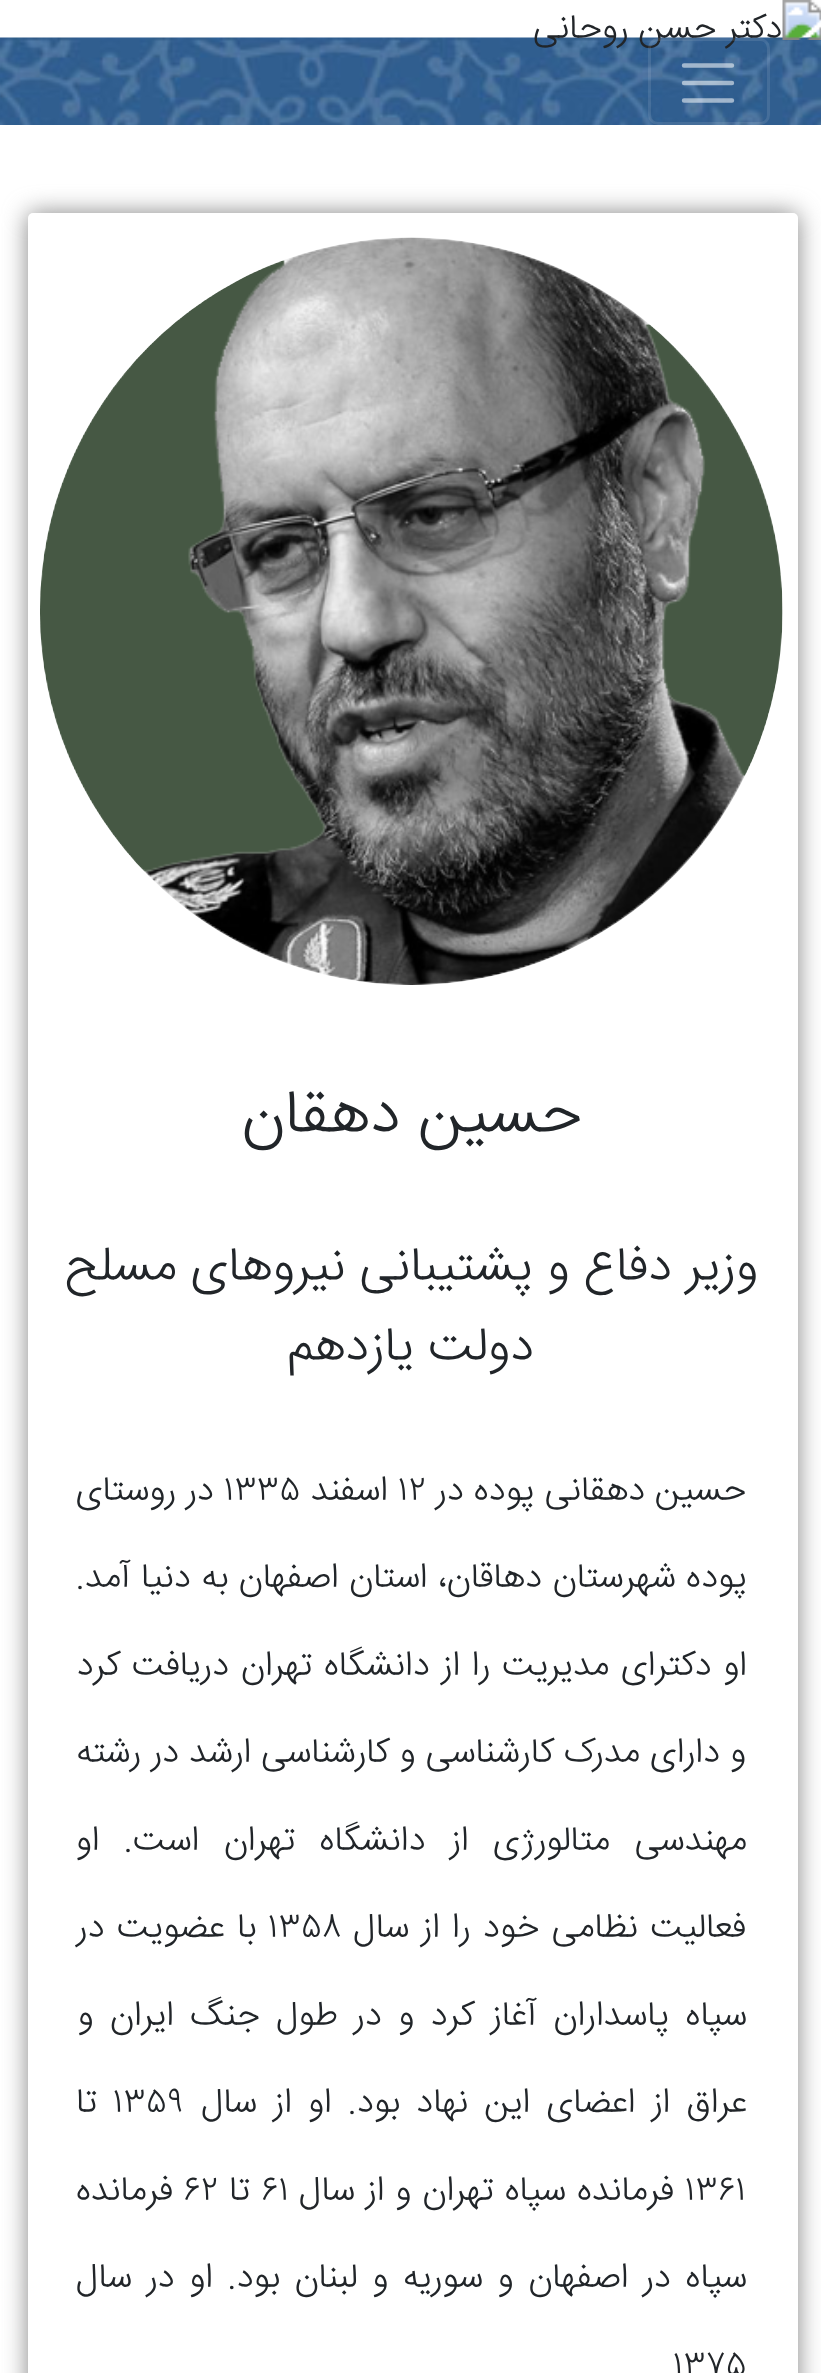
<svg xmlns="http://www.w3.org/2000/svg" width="821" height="2373">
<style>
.a{font:300 63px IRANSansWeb;direction:rtl;fill:#212529}
.b{font:300 49px IRANSansWeb;direction:rtl;fill:#212529}
.c{font:300 35px IRANSansWeb;direction:rtl;fill:#212529}
.d{font:300 35px IRANSansWeb;fill:#212529}
</style>
<rect width="100%" height="100%" fill="#fff"/>
<image href="2.png" x="0" y="37" width="821" height="88"/>
<image href="1.png" x="534" y="0" width="287" height="49"/>
<rect fill="none" stroke="#ffffff1a" stroke-width="3" x="649.5" y="39.5" width="119" height="84" rx="8.5"/>
<path fill="none" stroke="#ffffff8c" stroke-width="4.4" stroke-linecap="round" d="M684 65.5h48m-48 17.5h48m-48 17.5h48"/>
<rect fill="#858585" filter="blur(12.5px)" x="28" y="213" width="770" height="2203" rx="5"/>
<rect fill="#fff" x="28" y="213" width="770" height="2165" rx="5"/>
<image href="3.png" x="40" y="237" width="743" height="748"/>
<text class="a" x="582" y="1132">حسین دهقان</text>
<text class="b" x="758" y="1280">وزیر دفاع و پشتیبانی نیروهای مسلح</text>
<text class="b" x="534" y="1360">دولت یازدهم</text>
<text class="c" x="746" y="1500">حسین دهقانی پوده در</text>
<text class="d" x="398" y="1500">۱۲</text>
<text class="c" x="388" y="1500">اسفند</text>
<text class="d" x="224" y="1500">۱۳۳۵</text>
<text class="c" x="214" y="1500">در روستای</text>
<text class="c" x="747" y="1587" word-spacing="0.5">پوده شهرستان دهاقان، استان اصفهان به دنیا آمد.</text>
<text class="c" x="747" y="1675" word-spacing="1.75">او دکترای مدیریت را از دانشگاه تهران دریافت کرد</text>
<text class="c" x="746" y="1762">و دارای مدرک کارشناسی و کارشناسی ارشد در رشته</text>
<text class="c" x="747" y="1850" word-spacing="14.5">مهندسی متالورژی از دانشگاه تهران است. او</text>
<text class="c" x="746" y="1937" word-spacing="2.25">فعالیت نظامی خود را از سال</text>
<text class="d" x="268" y="1937">۱۳۵۸</text>
<text class="c" x="256" y="1937" word-spacing="2.25">با عضویت در</text>
<text class="c" x="747" y="2025" word-spacing="6.5">سپاه پاسداران آغاز کرد و در طول جنگ ایران و</text>
<text class="c" x="747" y="2112" word-spacing="6.25">عراق از اعضای این نهاد بود. او از سال</text>
<text class="d" x="113" y="2112">۱۳۵۹</text>
<text class="c" x="97" y="2112">تا</text>
<text class="d" x="685" y="2200">۱۳۶۱</text>
<text class="c" x="674" y="2200" word-spacing="1">فرمانده سپاه تهران و از سال</text>
<text class="d" x="261" y="2200">۶۱</text>
<text class="c" x="250" y="2200">تا</text>
<text class="d" x="184" y="2200">۶۲</text>
<text class="c" x="173" y="2200">فرمانده</text>
<text class="c" x="747" y="2287" word-spacing="4.75">سپاه در اصفهان و سوریه و لبنان بود. او در سال</text>
<text class="d" x="673" y="2375">۱۳۷۵</text>
</svg>
